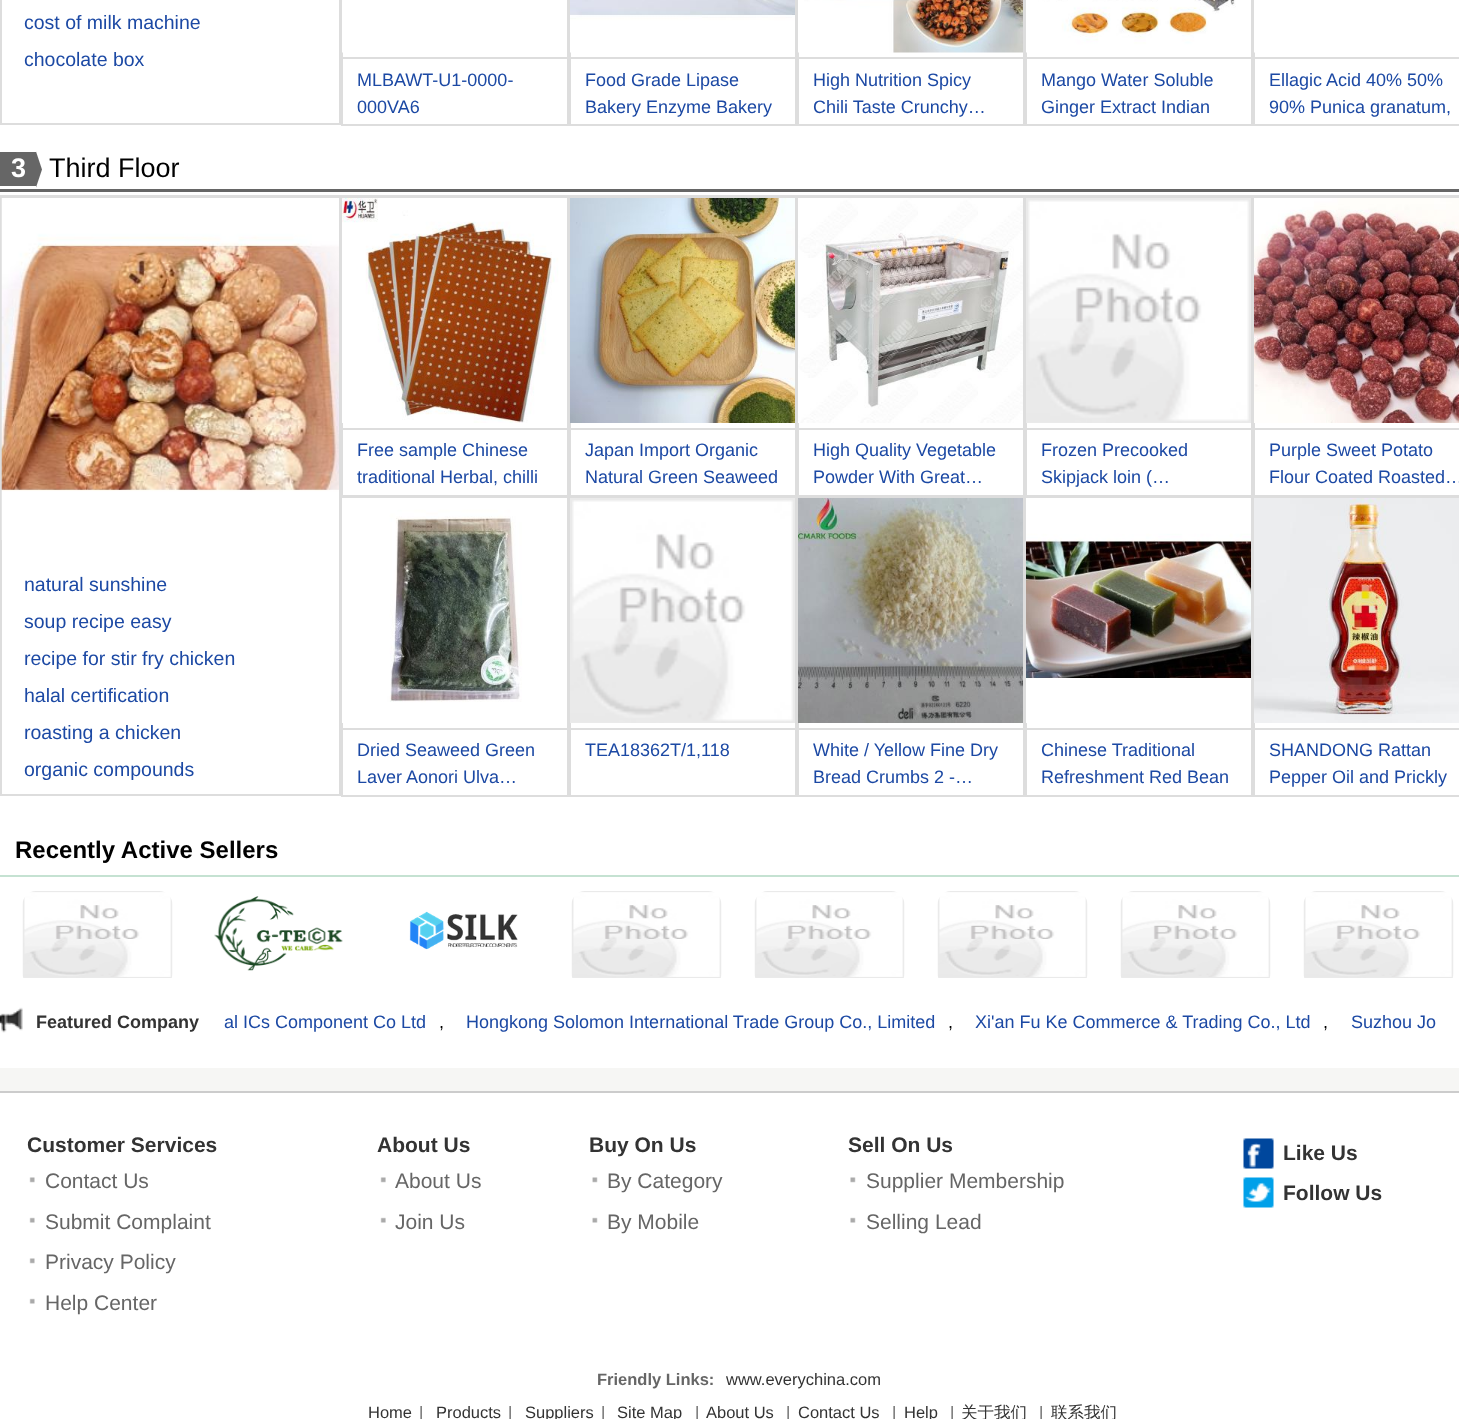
<svg xmlns="http://www.w3.org/2000/svg" width="1459" height="1419">
<style>
.a{font:19.5px Liberation Sans;fill:#1c49a4}
.b{font:18px Liberation Sans;fill:#1c49a4}
.c{font:bold 27px Liberation Sans;fill:#fff}
.d{font:27px Liberation Sans;fill:#000}
.e{font:bold 24px Liberation Sans;fill:#000}
.f{font:bold 18px Liberation Sans;fill:#333}
.g{font:18px Liberation Sans;fill:#000}
.h{font:bold 21px Liberation Sans;fill:#333}
.i{font:21px Liberation Sans;fill:#666}
.j{font:bold 16.5px Liberation Sans;fill:#666}
.k{font:16.5px Liberation Sans;fill:#333}
.l{font:16.5px Liberation Sans;fill:#666}
.m{font:500 16.5px WenQuanYi Zen Hei;fill:#333}
</style>
<rect width="100%" height="100%" fill="#f6f6f4"/>
<path fill="#fff" d="M0 0h1459v1068H0z"/>
<path fill="#ddd" d="M339 0h2v125H339z"/>
<path fill="#ddd" d="M0 123h341v2H0z"/>
<path fill="#ddd" d="M0 0h2v125H0z"/>
<path fill="none" stroke="#ddd" stroke-width="2" d="M342 -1h226v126H342z"/>
<image href="1.png" x="342" y="0" width="1" height="53"/>
<path fill="#ddd" d="M342 57h225v2H342z"/>
<path fill="none" stroke="#ddd" stroke-width="2" d="M570 -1h226v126H570z"/>
<image href="2.png" x="570" y="0" width="225" height="53"/>
<path fill="#ddd" d="M570 57h225v2H570z"/>
<path fill="none" stroke="#ddd" stroke-width="2" d="M798 -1h226v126H798z"/>
<image href="3.png" x="798" y="0" width="225" height="53"/>
<path fill="#ddd" d="M798 57h225v2H798z"/>
<path fill="none" stroke="#ddd" stroke-width="2" d="M1026 -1h226v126H1026z"/>
<image href="4.png" x="1026" y="0" width="210" height="53"/>
<path fill="#ddd" d="M1026 57h225v2H1026z"/>
<path fill="none" stroke="#ddd" stroke-width="2" d="M1254 -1h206v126H1254z"/>
<image href="5.png" x="1254" y="0" width="1" height="53"/>
<path fill="#ddd" d="M1254 57h205v2H1254z"/>
<path fill="#666" d="M0 189h1459v3H0z"/>
<path fill="#666" d="M0 152h36v34H0z"/>
<path fill="#666" d="M36 187.5v-36l6 18z"/>
<path fill="#ddd" d="M0 195h341v3H0z"/>
<path fill="#ddd" d="M339 195h2v600H339z"/>
<path fill="#ddd" d="M0 794h341v2H0z"/>
<path fill="#ddd" d="M0 195h2v600H0z"/>
<image href="6.png" x="1" y="198" width="338" height="342"/>
<path fill="#ddd" d="M341 195h1118v2H341z"/>
<path fill="none" stroke="#ddd" stroke-width="2" d="M342 198h226v298H342z"/>
<image href="7.png" x="342" y="198" width="225" height="225"/>
<path fill="#ddd" d="M342 428h225v2H342z"/>
<path fill="none" stroke="#ddd" stroke-width="2" d="M570 198h226v298H570z"/>
<image href="8.png" x="570" y="198" width="225" height="225"/>
<path fill="#ddd" d="M570 428h225v2H570z"/>
<path fill="none" stroke="#ddd" stroke-width="2" d="M798 198h226v298H798z"/>
<image href="9.png" x="798" y="198" width="225" height="225"/>
<path fill="#ddd" d="M798 428h225v2H798z"/>
<path fill="none" stroke="#ddd" stroke-width="2" d="M1026 198h226v298H1026z"/>
<image href="10.png" x="1026" y="198" width="225" height="225"/>
<path fill="#ddd" d="M1026 428h225v2H1026z"/>
<path fill="none" stroke="#ddd" stroke-width="2" d="M1254 198h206v298H1254z"/>
<image href="11.png" x="1254" y="198" width="205" height="225"/>
<path fill="#ddd" d="M1254 428h205v2H1254z"/>
<path fill="none" stroke="#ddd" stroke-width="2" d="M342 498h226v298H342z"/>
<image href="12.png" x="342" y="498" width="225" height="225"/>
<path fill="#ddd" d="M342 728h225v2H342z"/>
<path fill="none" stroke="#ddd" stroke-width="2" d="M570 498h226v298H570z"/>
<image href="10.png" x="570" y="498" width="225" height="225"/>
<path fill="#ddd" d="M570 728h225v2H570z"/>
<path fill="none" stroke="#ddd" stroke-width="2" d="M798 498h226v298H798z"/>
<image href="13.png" x="798" y="498" width="225" height="225"/>
<path fill="#ddd" d="M798 728h225v2H798z"/>
<path fill="none" stroke="#ddd" stroke-width="2" d="M1026 498h226v298H1026z"/>
<image href="14.png" x="1026" y="498" width="225" height="225"/>
<path fill="#ddd" d="M1026 728h225v2H1026z"/>
<path fill="none" stroke="#ddd" stroke-width="2" d="M1254 498h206v298H1254z"/>
<image href="15.png" x="1254" y="498" width="205" height="225"/>
<path fill="#ddd" d="M1254 728h205v2H1254z"/>
<path fill="#c5e2d2" d="M0 875h1459v2H0z"/>
<image href="16.png" x="22" y="891" width="151" height="87"/>
<image href="17.png" x="214" y="896" width="129" height="75"/>
<image href="18.png" x="409" y="911" width="109" height="39"/>
<image href="16.png" x="571" y="891" width="151" height="87"/>
<image href="19.png" x="754" y="891" width="151" height="87"/>
<image href="20.png" x="937" y="891" width="151" height="87"/>
<image href="16.png" x="1120" y="891" width="151" height="87"/>
<image href="21.png" x="1303" y="891" width="151" height="87"/>
<image href="22.png" x="0" y="1007" width="23" height="26"/>
<path fill="#fff" d="M0 1093h1459v326H0z"/>
<path fill="#ccc" d="M0 1091h1459v2H0z"/>
<image href="23.png" x="29" y="1177" width="6" height="6"/>
<image href="24.png" x="29" y="1217" width="6" height="6"/>
<image href="23.png" x="29" y="1258" width="6" height="6"/>
<image href="24.png" x="29" y="1298" width="6" height="6"/>
<image href="25.png" x="380" y="1177" width="6" height="6"/>
<image href="26.png" x="380" y="1217" width="6" height="6"/>
<image href="27.png" x="592" y="1177" width="6" height="6"/>
<image href="28.png" x="592" y="1217" width="6" height="6"/>
<image href="29.png" x="850" y="1177" width="6" height="6"/>
<image href="30.png" x="850" y="1217" width="6" height="6"/>
<image href="31.png" x="1243" y="1138" width="31" height="31"/>
<image href="32.png" x="1243" y="1177" width="31" height="31"/>
<text class="a" x="24" y="29">cost of milk machine</text>
<text class="a" x="24" y="66">chocolate box</text>
<text class="b" x="357" y="86">MLBAWT-U1-0000-</text>
<text class="b" x="357" y="113">000VA6</text>
<text class="b" x="585" y="86">Food Grade Lipase</text>
<text class="b" x="585" y="113">Bakery Enzyme Bakery</text>
<text class="b" x="813" y="86">High Nutrition Spicy</text>
<text class="b" x="813" y="113">Chili Taste Crunchy…</text>
<text class="b" x="1041" y="86">Mango Water Soluble</text>
<text class="b" x="1041" y="113">Ginger Extract Indian</text>
<text class="b" x="1269" y="86">Ellagic Acid 40% 50%</text>
<text class="b" x="1269" y="113">90% Punica granatum,</text>
<text class="c" x="11" y="177">3</text>
<text class="d" x="49" y="177">Third Floor</text>
<text class="a" x="24" y="591">natural sunshine</text>
<text class="a" x="24" y="628">soup recipe easy</text>
<text class="a" x="24" y="665">recipe for stir fry chicken</text>
<text class="a" x="24" y="702">halal certification</text>
<text class="a" x="24" y="739">roasting a chicken</text>
<text class="a" x="24" y="776">organic compounds</text>
<text class="b" x="357" y="456">Free sample Chinese</text>
<text class="b" x="357" y="483">traditional Herbal, chilli</text>
<text class="b" x="585" y="456">Japan Import Organic</text>
<text class="b" x="585" y="483">Natural Green Seaweed</text>
<text class="b" x="813" y="456">High Quality Vegetable</text>
<text class="b" x="813" y="483">Powder With Great…</text>
<text class="b" x="1041" y="456">Frozen Precooked</text>
<text class="b" x="1041" y="483">Skipjack loin (…</text>
<text class="b" x="1269" y="456">Purple Sweet Potato</text>
<text class="b" x="1269" y="483">Flour Coated Roasted…</text>
<text class="b" x="357" y="756">Dried Seaweed Green</text>
<text class="b" x="357" y="783">Laver Aonori Ulva…</text>
<text class="b" x="585" y="756">TEA18362T/1,118</text>
<text class="b" x="813" y="756">White / Yellow Fine Dry</text>
<text class="b" x="813" y="783">Bread Crumbs 2 -…</text>
<text class="b" x="1041" y="756">Chinese Traditional</text>
<text class="b" x="1041" y="783">Refreshment Red Bean</text>
<text class="b" x="1269" y="756">SHANDONG Rattan</text>
<text class="b" x="1269" y="783">Pepper Oil and Prickly</text>
<text class="e" x="15" y="858">Recently Active Sellers</text>
<text class="f" x="36" y="1028">Featured Company</text>
<text class="b" x="224" y="1028">al ICs Component Co Ltd</text>
<text class="g" x="439" y="1028">,</text>
<text class="b" x="466" y="1028">Hongkong Solomon International Trade Group Co., Limited</text>
<text class="g" x="948" y="1028">,</text>
<text class="b" x="975" y="1028">Xi'an Fu Ke Commerce &amp; Trading Co., Ltd</text>
<text class="g" x="1323" y="1028">,</text>
<text class="b" x="1351" y="1028">Suzhou Jo</text>
<text class="h" x="27" y="1152">Customer Services</text>
<text class="i" x="45" y="1188">Contact Us</text>
<text class="i" x="45" y="1229">Submit Complaint</text>
<text class="i" x="45" y="1269">Privacy Policy</text>
<text class="i" x="45" y="1310">Help Center</text>
<text class="h" x="377" y="1152">About Us</text>
<text class="i" x="395" y="1188">About Us</text>
<text class="i" x="395" y="1229">Join Us</text>
<text class="h" x="589" y="1152">Buy On Us</text>
<text class="i" x="607" y="1188">By Category</text>
<text class="i" x="607" y="1229">By Mobile</text>
<text class="h" x="848" y="1152">Sell On Us</text>
<text class="i" x="866" y="1188">Supplier Membership</text>
<text class="i" x="866" y="1229">Selling Lead</text>
<text class="h" x="1283" y="1160">Like Us</text>
<text class="h" x="1283" y="1200">Follow Us</text>
<text class="j" x="597" y="1385">Friendly Links:</text>
<text class="k" x="726" y="1385">www.everychina.com</text>
<text class="k" x="368" y="1418">Home</text>
<text class="l" x="419" y="1418">|</text>
<text class="k" x="436" y="1418">Products</text>
<text class="l" x="508" y="1418">|</text>
<text class="k" x="525" y="1418">Suppliers</text>
<text class="l" x="601" y="1418">|</text>
<text class="k" x="617" y="1418">Site Map</text>
<text class="l" x="695" y="1418">|</text>
<text class="k" x="706" y="1418">About Us</text>
<text class="l" x="786" y="1418">|</text>
<text class="k" x="798" y="1418">Contact Us</text>
<text class="l" x="892" y="1418">|</text>
<text class="k" x="904" y="1418">Help</text>
<text class="l" x="950" y="1418">|</text>
<text class="m" x="961" y="1418">关于我们</text>
<text class="l" x="1039" y="1418">|</text>
<text class="m" x="1051" y="1418">联系我们</text>
</svg>
